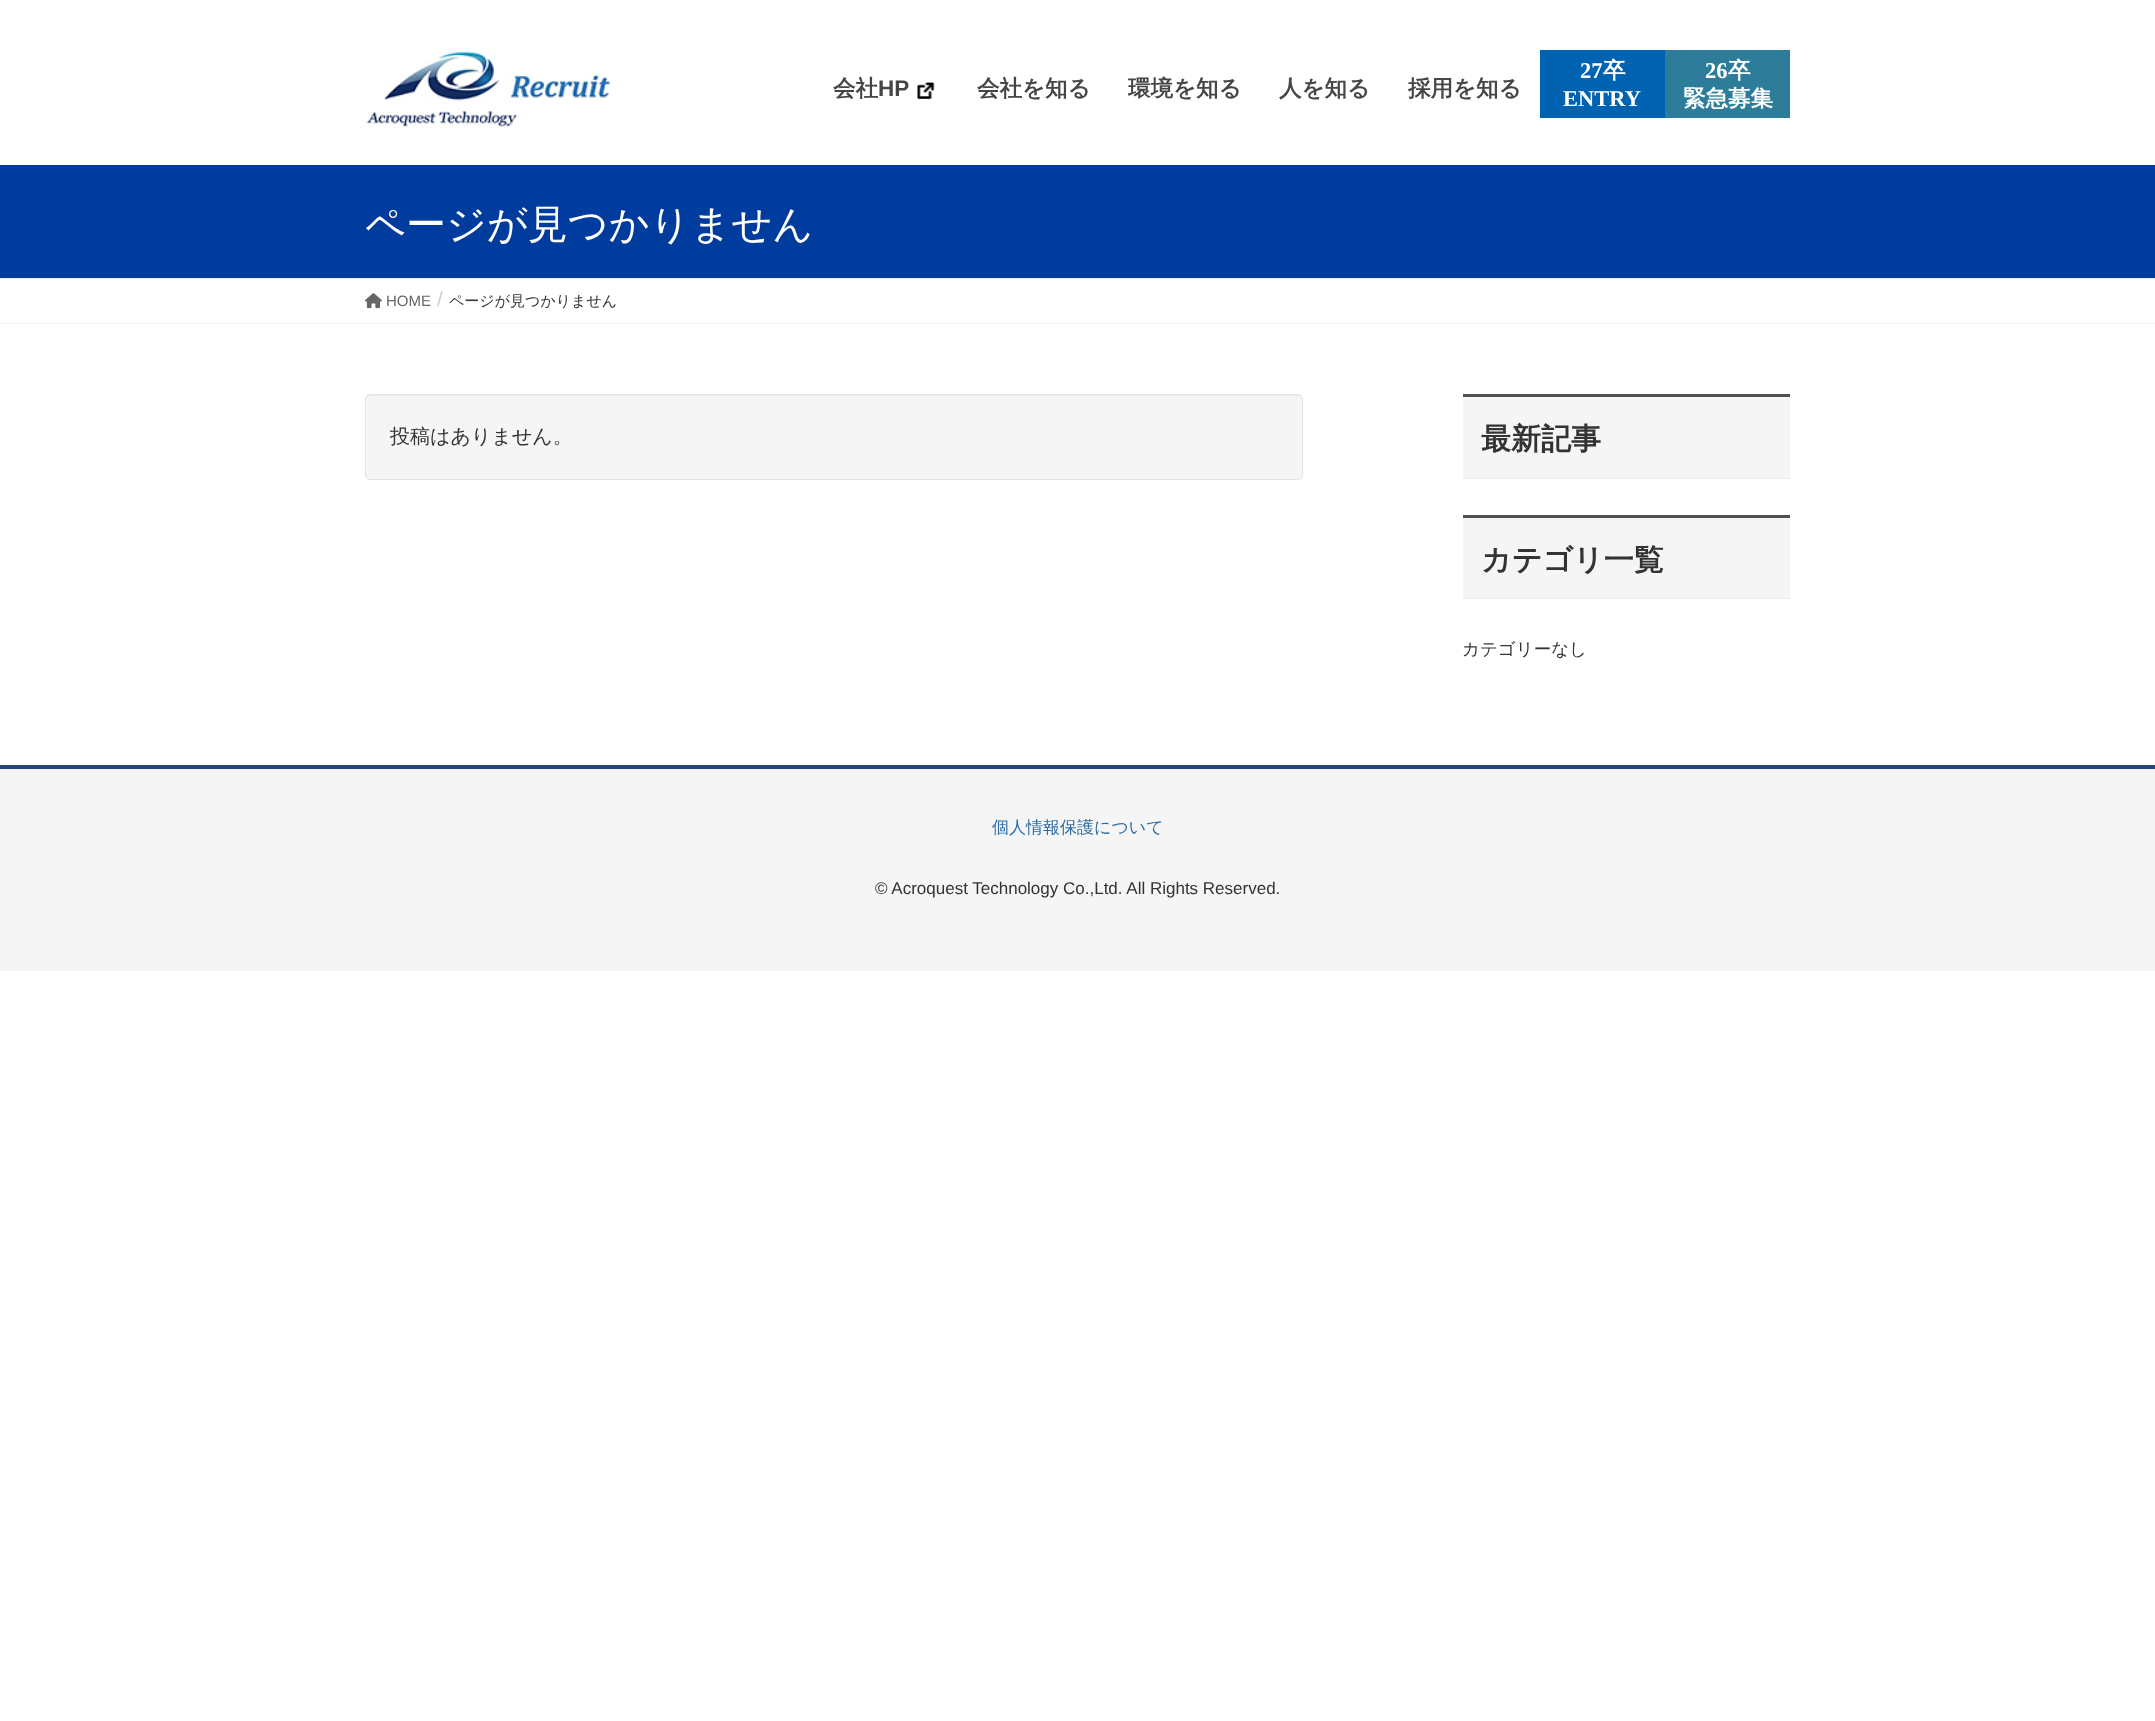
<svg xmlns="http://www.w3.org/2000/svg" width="2155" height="1721">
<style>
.a{font:bold 22.5px WenQuanYi Zen Hei;fill:#464646}
.b{font:bold 22.5px Liberation Sans;fill:#464646}
.c{font:bold 22.5px Liberation Serif;fill:#fff}
.d{font:bold 22.5px WenQuanYi Zen Hei;fill:#fff}
.e{font:500 40px WenQuanYi Zen Hei;fill:#fff}
.f{font:15px Liberation Sans;fill:#666}
.g{font:20px Liberation Sans;fill:#ccc}
.h{font:500 15px WenQuanYi Zen Hei;fill:#333}
.i{font:500 20px WenQuanYi Zen Hei;fill:#333}
.j{font:bold 30px WenQuanYi Zen Hei;fill:#333}
.k{font:500 17.5px WenQuanYi Zen Hei;fill:#333}
.l{font:500 17px WenQuanYi Zen Hei;fill:#2e6da4}
.m{font:17px Liberation Sans;fill:#333}
</style>
<rect width="100%" height="100%" fill="#fff"/>
<image href="1.png" x="366" y="51" width="245" height="77"/>
<image href="2.png" x="917" y="82" width="18" height="17"/>
<path fill="#0063b1" d="M1540 50h125v68H1540z"/>
<path fill="#2d7d9a" d="M1665 50h125v68H1665z"/>
<path fill="#003b9e" d="M0 165h2155v113H0z"/>
<path fill="#eee" d="M0 278h2155v1H0z"/>
<path fill="#f3f3f3" d="M0 323h2155v1H0z"/>
<image href="3.png" x="365" y="293" width="17" height="16"/>
<rect fill="#f5f5f5" x="365" y="394" width="938" height="86" rx="5"/>
<path fill="#e9e9e9" d="M370 396h928c2 0 3 2 3 4c0-3-1-5-4-5h-927c-3 0-4 2-4 5c0-2 2-4 4-4z"/>
<rect fill="none" stroke="#e3e3e3" x="365.5" y="394.5" width="937" height="85" rx="4.5"/>
<path fill="#f5f5f5" d="M1463 397h327v81H1463z"/>
<path fill="#505050" d="M1463 394h327v3H1463z"/>
<path fill="#e9e9e9" d="M1463 478h327v1H1463z"/>
<path fill="#f5f5f5" d="M1463 518h327v80H1463z"/>
<path fill="#505050" d="M1463 515h327v3H1463z"/>
<path fill="#e9e9e9" d="M1463 598h327v1H1463z"/>
<path fill="#f5f5f5" d="M0 769h2155v202H0z"/>
<path fill="#21447a" d="M0 765h2155v4H0z"/>
<text class="a" x="833" y="96">会社</text>
<text class="b" x="878" y="96">HP</text>
<text class="a" x="977" y="96">会社を知る</text>
<text class="a" x="1128" y="96">環境を知る</text>
<text class="a" x="1279" y="96">人を知る</text>
<text class="a" x="1408" y="96">採用を知る</text>
<text class="c" x="1580" y="78">27</text>
<text class="d" x="1603" y="78">卒</text>
<text class="c" x="1563" y="106">ENTRY</text>
<text class="c" x="1705" y="78">26</text>
<text class="d" x="1728" y="78">卒</text>
<text class="d" x="1683" y="106">緊急募集</text>
<text class="e" x="365" y="238">ページが見つかりません</text>
<text class="f" x="386" y="306">HOME</text>
<text class="g" x="437" y="306">/</text>
<text class="h" x="449" y="306">ページが見つかりません</text>
<text class="i" x="390" y="443">投稿はありません。</text>
<text class="j" x="1481" y="449">最新記事</text>
<text class="j" x="1481" y="570">カテゴリ一覧</text>
<text class="k" x="1462" y="655">カテゴリーなし</text>
<text class="l" x="992" y="833">個人情報保護について</text>
<text class="m" x="875" y="894">© Acroquest Technology Co.,Ltd. All Rights Reserved.</text>
</svg>
